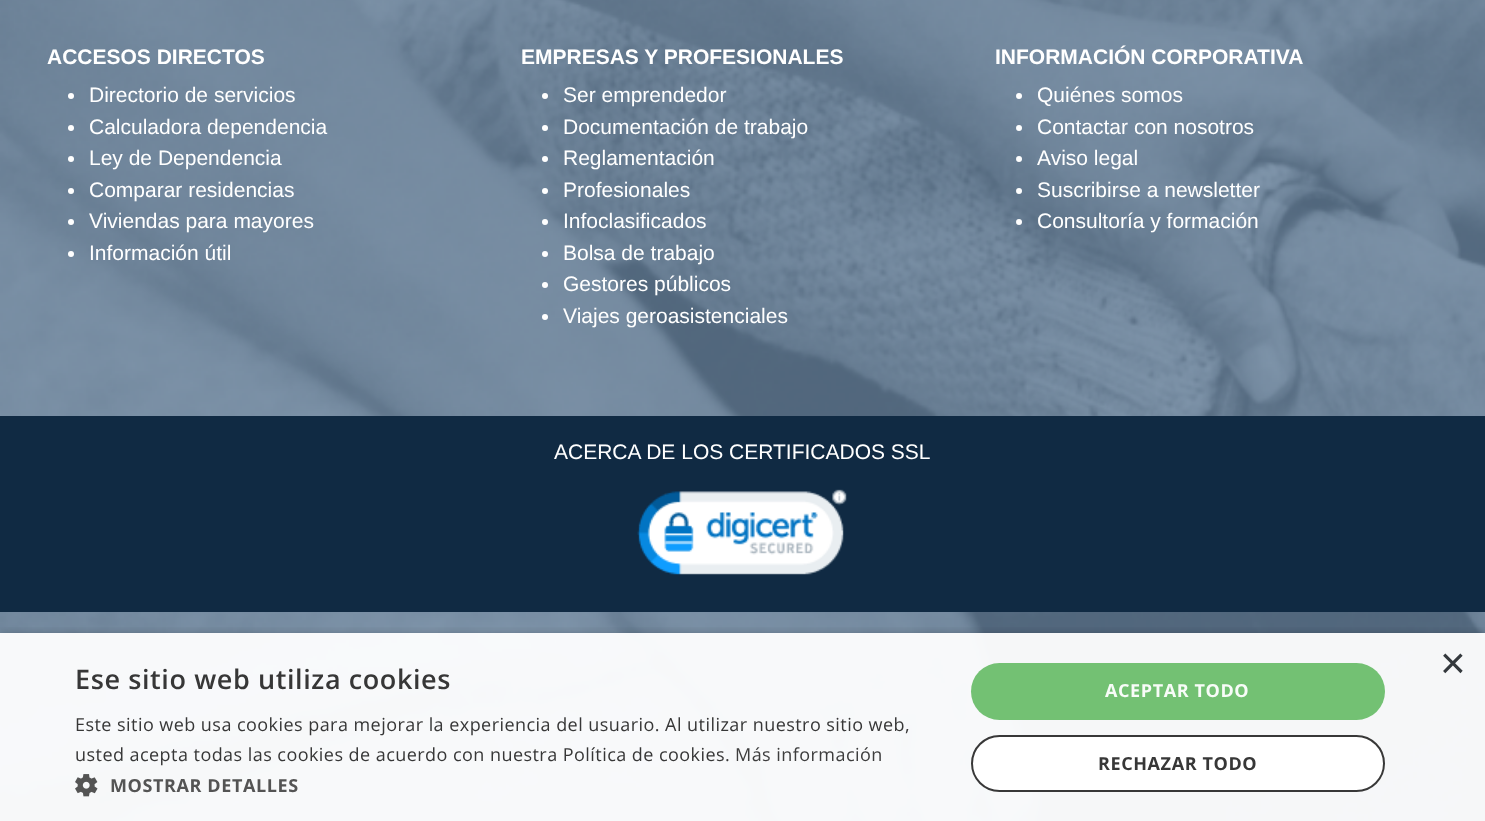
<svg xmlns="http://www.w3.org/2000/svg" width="1485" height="821">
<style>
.a{font:bold 21px Liberation Sans;fill:#fff}
.b{font:21px Liberation Sans;fill:#fff}
.c{font:44px Liberation Sans;fill:#34393d}
.d{font:600 27px Open Sans;letter-spacing:0.6px;fill:#373737}
.e{font:18px Open Sans;letter-spacing:0.45px;fill:#373737}
.f{font:18px Open Sans;letter-spacing:0.45px;fill:#3d3d3d}
.g{font:bold 18px Open Sans;letter-spacing:0.6px;fill:#545454}
.h{font:bold 18px Open Sans;letter-spacing:0.6px;fill:#f8fcf8}
.i{font:bold 18px Open Sans;letter-spacing:0.6px;fill:#373737}
</style>
<defs>
<clipPath id="clip1"><path d="M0 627h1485v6H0z"/></clipPath>
</defs>
<rect width="100%" height="100%" fill="#fff"/>
<image href="1.png" x="0" y="0" width="1485" height="821"/>
<circle fill="#fff" cx="71" cy="96" r="3"/>
<circle fill="#fff" cx="71" cy="128" r="3"/>
<circle fill="#fff" cx="71" cy="159" r="3"/>
<circle fill="#fff" cx="71" cy="191" r="3"/>
<circle fill="#fff" cx="71" cy="222" r="3"/>
<circle fill="#fff" cx="71" cy="254" r="3"/>
<circle fill="#fff" cx="545" cy="96" r="3"/>
<circle fill="#fff" cx="545" cy="128" r="3"/>
<circle fill="#fff" cx="545" cy="159" r="3"/>
<circle fill="#fff" cx="545" cy="191" r="3"/>
<circle fill="#fff" cx="545" cy="222" r="3"/>
<circle fill="#fff" cx="545" cy="254" r="3"/>
<circle fill="#fff" cx="545" cy="285" r="3"/>
<circle fill="#fff" cx="545" cy="317" r="3"/>
<circle fill="#fff" cx="1019" cy="96" r="3"/>
<circle fill="#fff" cx="1019" cy="128" r="3"/>
<circle fill="#fff" cx="1019" cy="159" r="3"/>
<circle fill="#fff" cx="1019" cy="191" r="3"/>
<circle fill="#fff" cx="1019" cy="222" r="3"/>
<path fill="#102a43" d="M0 416h1485v196H0z"/>
<image href="2.png" x="637" y="489" width="210" height="86"/>
<g clip-path="url(#clip1)">
<path fill="#00000054" filter="blur(6px)" d="M2 636h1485v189H2z"/>
</g>
<path fill="#fffffff2" d="M0 633h1485v188H0z"/>
<image href="3.png" x="75" y="774" width="23" height="23"/>
<rect fill="#6bbe6bf2" x="971" y="663" width="414" height="57" rx="28.5"/>
<rect fill="#fff" x="971" y="735" width="414" height="57" rx="28.5"/>
<rect fill="none" stroke="#2d2d2df2" stroke-width="2" x="972" y="736" width="412" height="55" rx="27.5"/>
<text class="a" x="47" y="64">ACCESOS DIRECTOS</text>
<text class="b" x="89" y="102">Directorio de servicios</text>
<text class="b" x="89" y="134">Calculadora dependencia</text>
<text class="b" x="89" y="165">Ley de Dependencia</text>
<text class="b" x="89" y="197">Comparar residencias</text>
<text class="b" x="89" y="228">Viviendas para mayores</text>
<text class="b" x="89" y="260">Información útil</text>
<text class="a" x="521" y="64">EMPRESAS Y PROFESIONALES</text>
<text class="b" x="563" y="102">Ser emprendedor</text>
<text class="b" x="563" y="134">Documentación de trabajo</text>
<text class="b" x="563" y="165">Reglamentación</text>
<text class="b" x="563" y="197">Profesionales</text>
<text class="b" x="563" y="228">Infoclasificados</text>
<text class="b" x="563" y="260">Bolsa de trabajo</text>
<text class="b" x="563" y="291">Gestores públicos</text>
<text class="b" x="563" y="323">Viajes geroasistenciales</text>
<text class="a" x="995" y="64">INFORMACIÓN CORPORATIVA</text>
<text class="b" x="1037" y="102">Quiénes somos</text>
<text class="b" x="1037" y="134">Contactar con nosotros</text>
<text class="b" x="1037" y="165">Aviso legal</text>
<text class="b" x="1037" y="197">Suscribirse a newsletter</text>
<text class="b" x="1037" y="228">Consultoría y formación</text>
<text class="b" x="554" y="459">ACERCA DE LOS CERTIFICADOS SSL</text>
<text class="c" x="1440" y="678">×</text>
<text class="d" x="75" y="689">Ese sitio web utiliza cookies</text>
<text class="e" x="75" y="731">Este sitio web usa cookies para mejorar la experiencia del usuario. Al utilizar nuestro sitio web,</text>
<text class="e" x="75" y="761">usted acepta todas las cookies de acuerdo con nuestra Política de cookies.</text>
<text class="f" x="735" y="761">Más información</text>
<text class="g" x="110" y="792">MOSTRAR DETALLES</text>
<text class="h" x="1105" y="697">ACEPTAR TODO</text>
<text class="i" x="1098" y="770">RECHAZAR TODO</text>
</svg>
